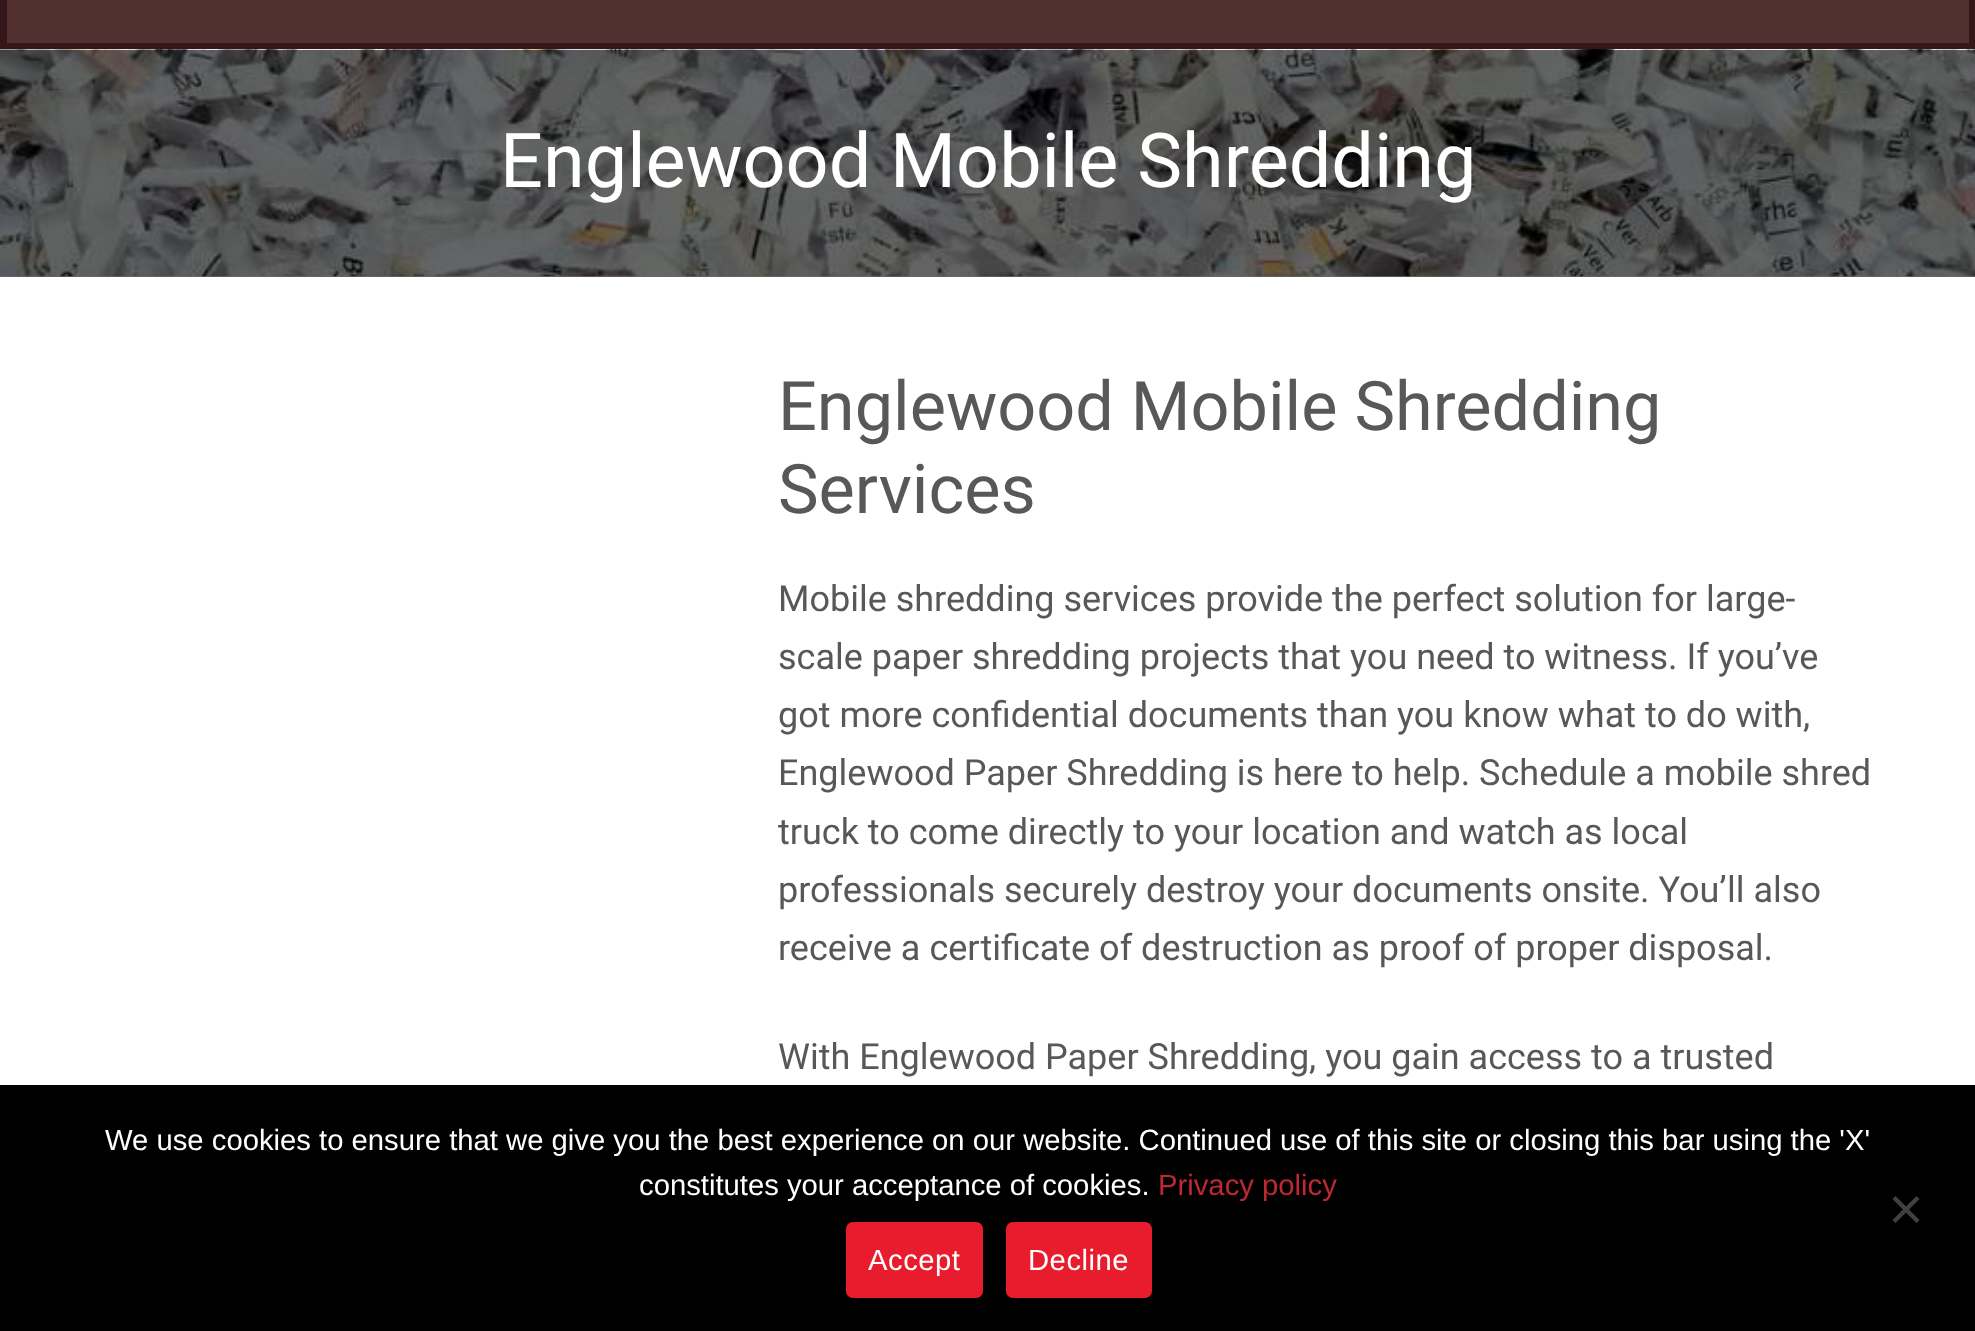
<svg xmlns="http://www.w3.org/2000/svg" width="1975" height="1331">
<style>
.a{font:75.6px Roboto;fill:#fff}
.b{font:68.4px Roboto;fill:#585858}
.c{font:36px Roboto;fill:#585858}
.d{font:29.25px Liberation Sans;fill:#fff}
.e{font:29.25px Liberation Sans;fill:#bf2734}
.f{font:29.25px Liberation Sans;letter-spacing:0.5px;fill:#fff}
</style>
<rect width="100%" height="100%" fill="#fff"/>
<path fill="#666" d="M0 276h1975v1H0z"/>
<path fill="#523030" stroke="#351619" stroke-width="7" d="M3.5 -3.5h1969v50H3.5z"/>
<image href="1.png" x="0" y="49" width="1975" height="228"/>
<path fill="#000" d="M0 1085h1975v246H0z"/>
<path fill="#404040" d="M1916.5 1196l3 3l-24 24l-3-3z"/>
<path fill="#404040" d="M1892.5 1199l3-3l24 24l-3 3z"/>
<rect fill="#e91c2e" x="846" y="1222" width="137" height="76" rx="7"/>
<rect fill="#e91c2e" x="1006" y="1222" width="146" height="76" rx="7"/>
<text class="a" x="500" y="187">Englewood Mobile Shredding</text>
<text class="b" x="778" y="430">Englewood Mobile Shredding</text>
<text class="b" x="778" y="513">Services</text>
<text class="c" x="778" y="611">Mobile shredding services provide the perfect solution for large-</text>
<text class="c" x="778" y="669">scale paper shredding projects that you need to witness. If you’ve</text>
<text class="c" x="778" y="727">got more confidential documents than you know what to do with,</text>
<text class="c" x="778" y="785">Englewood Paper Shredding is here to help. Schedule a mobile shred</text>
<text class="c" x="778" y="844">truck to come directly to your location and watch as local</text>
<text class="c" x="778" y="902">professionals securely destroy your documents onsite. You’ll also</text>
<text class="c" x="778" y="960">receive a certificate of destruction as proof of proper disposal.</text>
<text class="c" x="778" y="1069">With Englewood Paper Shredding, you gain access to a trusted</text>
<text class="d" x="105" y="1150">We use cookies to ensure that we give you the best experience on our website. Continued use of this site or closing this bar using the 'X'</text>
<text class="d" x="639" y="1195">constitutes your acceptance of cookies.</text>
<text class="e" x="1158" y="1195">Privacy policy</text>
<text class="f" x="868" y="1270">Accept</text>
<text class="f" x="1028" y="1270">Decline</text>
</svg>
